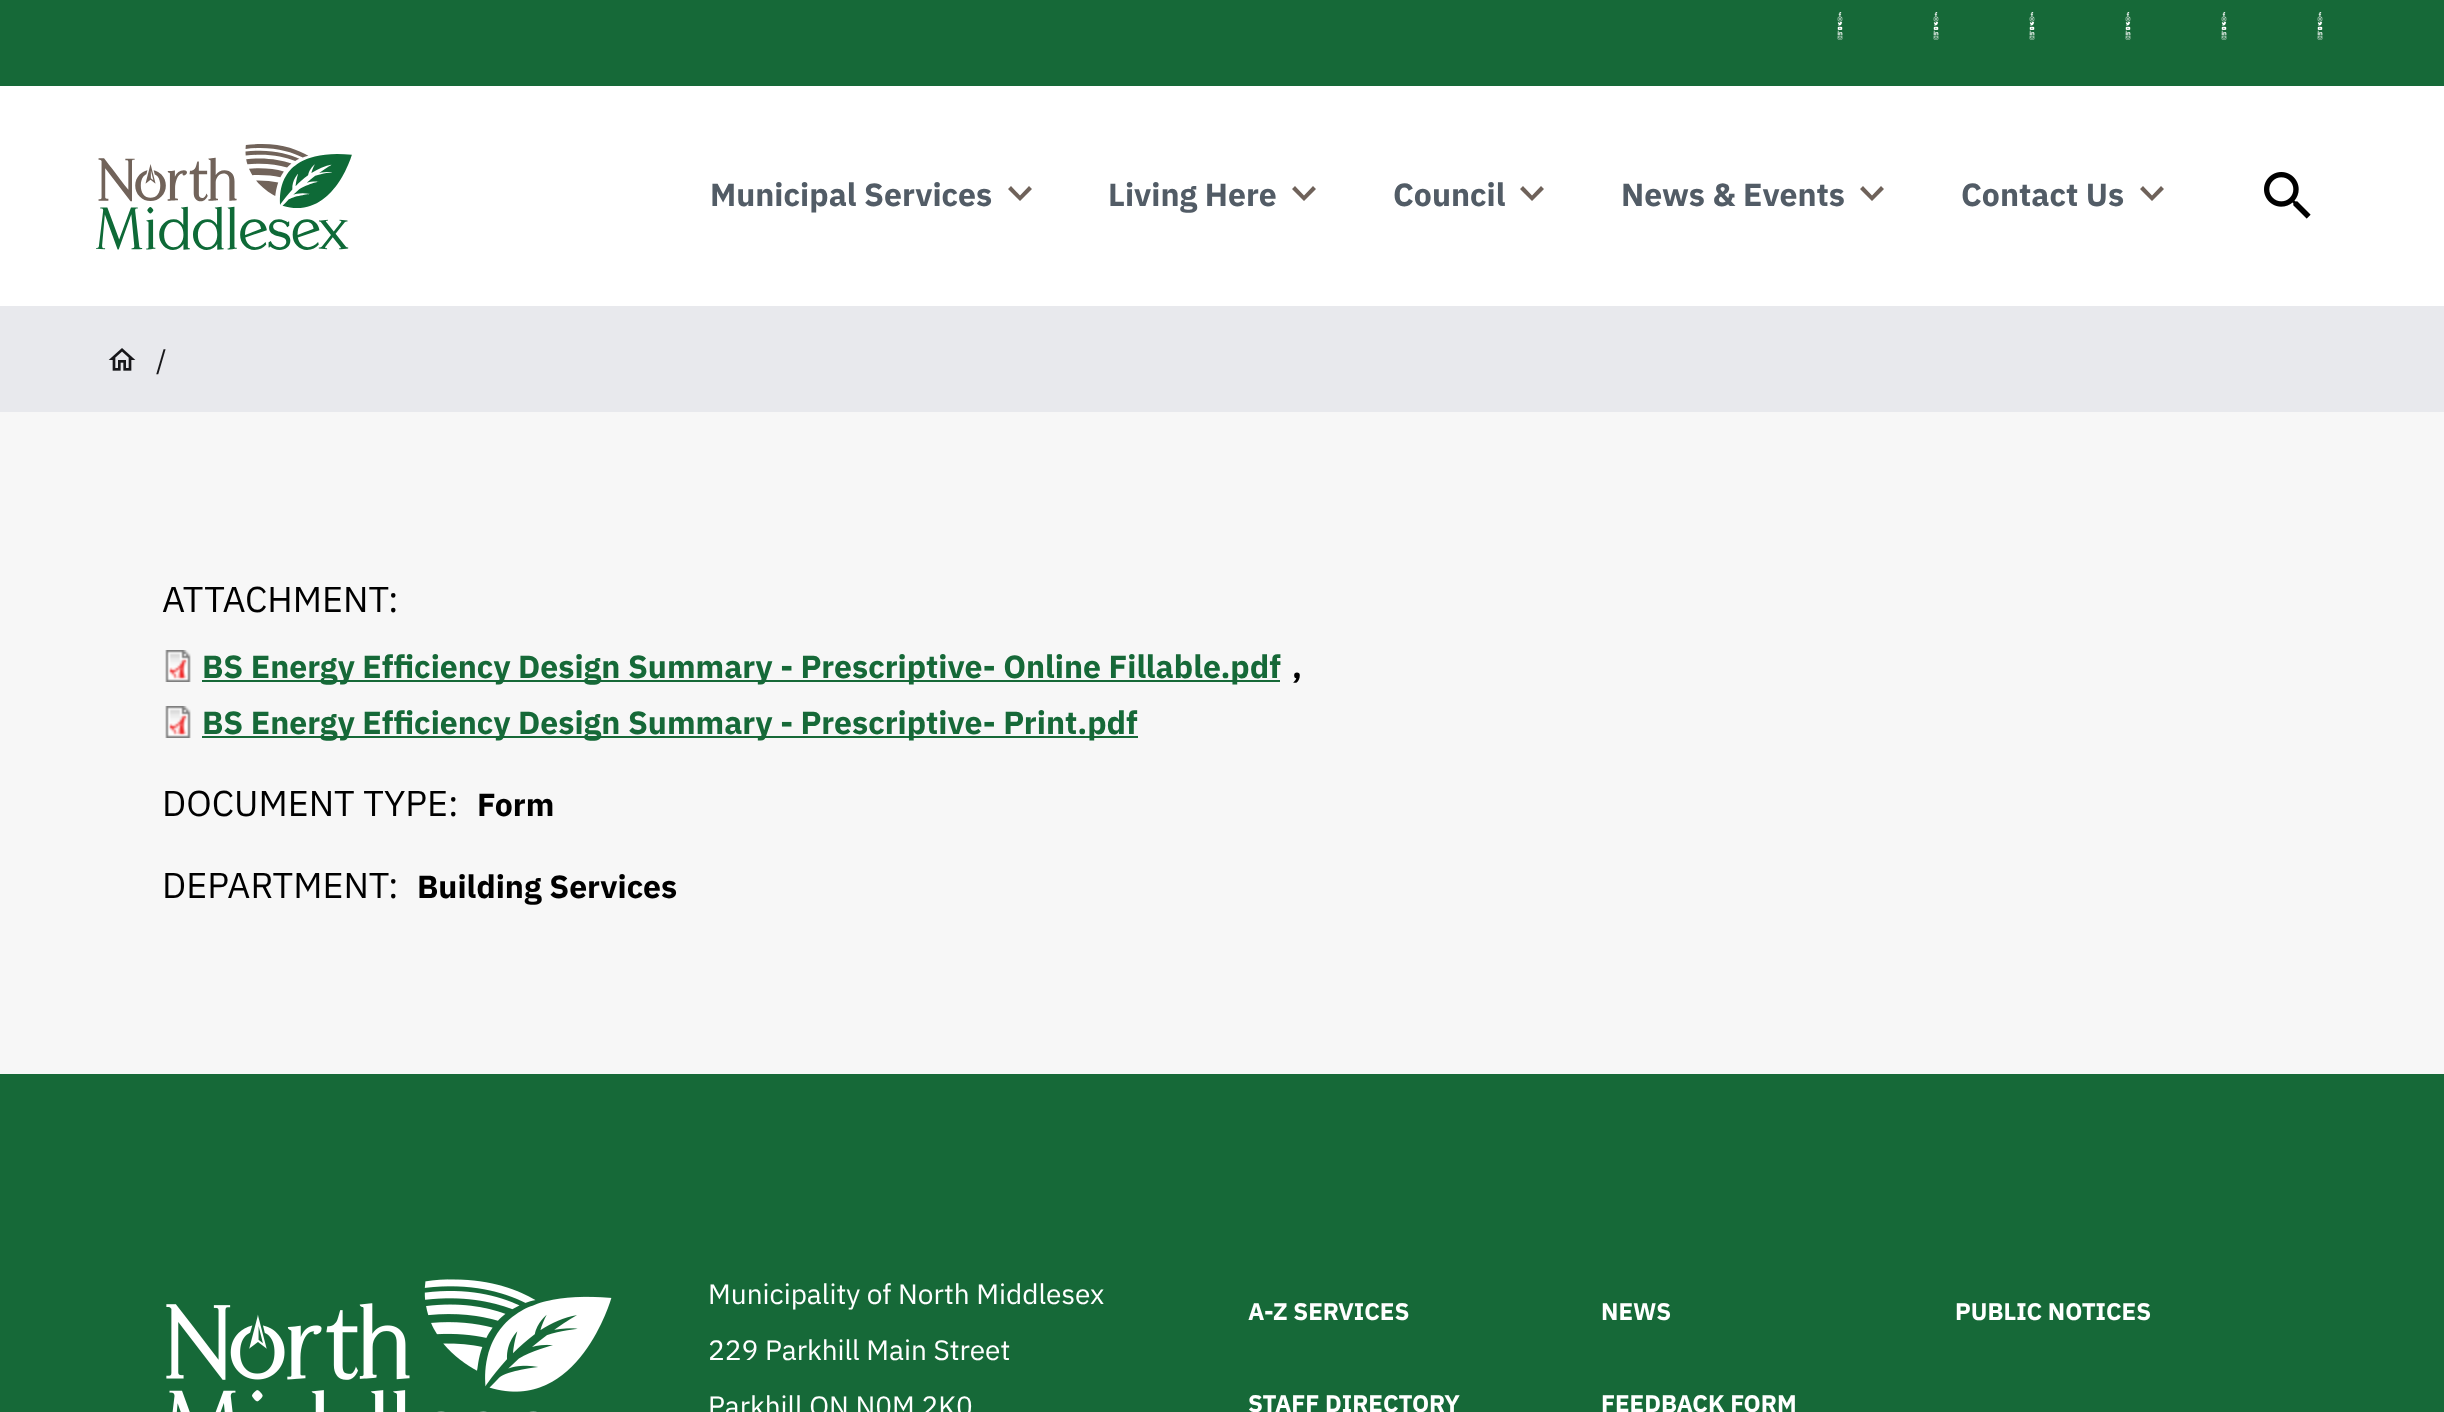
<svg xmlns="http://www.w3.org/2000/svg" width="2444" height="1412">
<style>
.a{font:bold 32px IBM Plex Sans;fill:#525c66}
.b{font:28px IBM Plex Sans;fill:#17171a}
.c{font:36px IBM Plex Sans;fill:#000}
.d{font:bold 32px IBM Plex Sans;fill:#166938}
.e{font:bold 32px IBM Plex Sans;fill:#000}
.f{font:28px IBM Plex Sans;fill:#fff}
.g{font:bold 24px IBM Plex Sans;fill:#fff}
</style>
<rect width="100%" height="100%" fill="#fff"/>
<path fill="#166938" d="M0 0h2444v86H0z"/>
<image href="1.png" x="1837" y="12" width="6" height="28"/>
<image href="1.png" x="1933" y="12" width="6" height="28"/>
<image href="1.png" x="2029" y="12" width="6" height="28"/>
<image href="1.png" x="2125" y="12" width="6" height="28"/>
<image href="1.png" x="2221" y="12" width="6" height="28"/>
<image href="1.png" x="2317" y="12" width="6" height="28"/>
<image href="2.png" x="96" y="144" width="256" height="106"/>
<path fill="#6f625a" d="M1011 186l9 9.5l9-9.5l3 3l-12 12l-12-12z"/>
<path fill="#6f625a" d="M1295 186l9 9.5l9-9.5l3 3l-12 12l-12-12z"/>
<path fill="#6f625a" d="M1523 186l9 9.5l9-9.5l3 3l-12 12l-12-12z"/>
<path fill="#6f625a" d="M1863 186l9 9.5l9-9.5l3 3l-12 12l-12-12z"/>
<path fill="#6f625a" d="M2143 186l9 9.5l9-9.5l3 3l-12 12l-12-12z"/>
<image href="3.png" x="2264" y="172" width="47" height="47"/>
<path fill="#f7f7f7" d="M0 412h2444v662H0z"/>
<path fill="#e8e9ed" d="M0 306h2444v106H0z"/>
<image href="4.png" x="108" y="348" width="28" height="23"/>
<image href="5.png" x="165" y="650" width="26" height="32"/>
<path fill="#166938" d="M202 680h1078v2H202z"/>
<image href="5.png" x="165" y="706" width="26" height="32"/>
<path fill="#166938" d="M202 736h936v2H202z"/>
<path fill="#166938" d="M0 1074h2444v338H0z"/>
<image href="6.png" x="166" y="1279" width="446" height="133"/>
<text class="a" x="710" y="206">Municipal Services</text>
<text class="a" x="1108" y="206">Living Here</text>
<text class="a" x="1393" y="206">Council</text>
<text class="a" x="1621" y="206">News &amp; Events</text>
<text class="a" x="1961" y="206">Contact Us</text>
<text class="b" x="156" y="370">/</text>
<text class="c" x="162" y="612">ATTACHMENT</text>
<text class="c" x="388" y="612">:</text>
<text class="d" x="202" y="678">BS Energy Efficiency Design Summary - Prescriptive- Online Fillable.pdf</text>
<text class="e" x="1292" y="678">,</text>
<text class="d" x="202" y="734">BS Energy Efficiency Design Summary - Prescriptive- Print.pdf</text>
<text class="c" x="162" y="816">DOCUMENT TYPE:</text>
<text class="e" x="477" y="816">Form</text>
<text class="c" x="162" y="898">DEPARTMENT</text>
<text class="c" x="388" y="898">:</text>
<text class="e" x="417" y="898">Building Services</text>
<text class="f" x="708" y="1304">Municipality of North Middlesex</text>
<text class="f" x="708" y="1360">229 Parkhill Main Street</text>
<text class="f" x="708" y="1416">Parkhill ON N0M 2K0</text>
<text class="g" x="1248" y="1320">A-Z SERVICES</text>
<text class="g" x="1601" y="1320">NEWS</text>
<text class="g" x="1955" y="1320">PUBLIC NOTICES</text>
<text class="g" x="1248" y="1412">STAFF DIRECTORY</text>
<text class="g" x="1601" y="1412">FEEDBACK FORM</text>
</svg>
